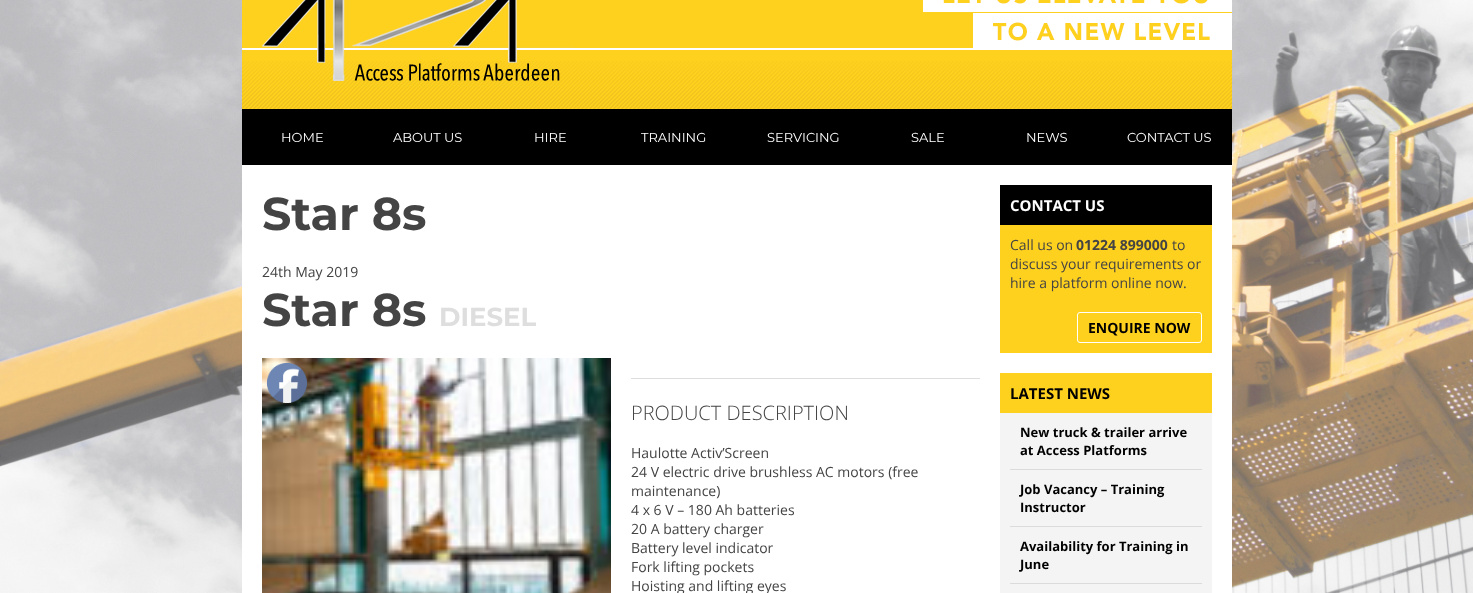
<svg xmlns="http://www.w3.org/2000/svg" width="1473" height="593">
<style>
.a{font:13px Montserrat;fill:#fff}
.b{font:bold 46px Montserrat;fill:#444}
.c{font:14px Open Sans;fill:#444}
.d{font:bold 26px Montserrat;fill:#dedede}
.e{font:300 20px Open Sans;fill:#444}
.f{font:bold 15px Open Sans;fill:#fff}
.g{font:bold 14px Open Sans;fill:#444}
.h{font:bold 14px Open Sans;fill:#000}
.i{font:bold 15px Open Sans;fill:#000}
.j{font:bold 13px Open Sans;fill:#000}
</style>
<rect width="100%" height="100%" fill="#fff"/>
<image href="1.png" x="0" y="0" width="1473" height="593"/>
<path fill="#ffd11f" d="M242 0h990v109H242z"/>
<image href="2.png" x="242" y="61" width="990" height="48"/>
<image href="5.png" x="923" y="0" width="309" height="50"/>
<image href="4.png" x="242" y="48" width="731" height="2"/>
<image href="3.png" x="262" y="0" width="312" height="81"/>
<path fill="#000" d="M242 109h990v56H242z"/>
<path fill="#fff" d="M242 165h990v428H242z"/>
<image href="6.png" x="262" y="358" width="349" height="235"/>
<path fill="#dedede" d="M631 378h349v1H631z"/>
<image href="7.png" x="267" y="363" width="40" height="40"/>
<path fill="#ffd11f" d="M1000 225h212v128H1000z"/>
<path fill="#000" d="M1000 185h212v40H1000z"/>
<rect fill="none" stroke="#fff" x="1077.5" y="312.5" width="124" height="30" rx="2.5"/>
<path fill="#f4f4f4" d="M1000 413h212v180H1000z"/>
<path fill="#ffd11f" d="M1000 373h212v40H1000z"/>
<path fill="#dbdbdb" d="M1010 469h192v1H1010z"/>
<path fill="#dbdbdb" d="M1010 526h192v1H1010z"/>
<path fill="#dbdbdb" d="M1010 583h192v1H1010z"/>
<text class="a" x="281" y="142">HOME</text>
<text class="a" x="393" y="142">ABOUT US</text>
<text class="a" x="534" y="142">HIRE</text>
<text class="a" x="641" y="142">TRAINING</text>
<text class="a" x="767" y="142">SERVICING</text>
<text class="a" x="911" y="142">SALE</text>
<text class="a" x="1026" y="142">NEWS</text>
<text class="a" x="1127" y="142">CONTACT US</text>
<text class="b" x="262" y="230">Star 8s</text>
<text class="c" x="262" y="277">24th May 2019</text>
<text class="b" x="262" y="326">Star 8s</text>
<text class="d" x="439" y="326">DIESEL</text>
<text class="e" x="631" y="420">PRODUCT DESCRIPTION</text>
<text class="c" x="631" y="458">Haulotte Activ’Screen</text>
<text class="c" x="631" y="477">24 V electric drive brushless AC motors (free</text>
<text class="c" x="631" y="496">maintenance)</text>
<text class="c" x="631" y="515">4 x 6 V – 180 Ah batteries</text>
<text class="c" x="631" y="534">20 A battery charger</text>
<text class="c" x="631" y="553">Battery level indicator</text>
<text class="c" x="631" y="572">Fork lifting pockets</text>
<text class="c" x="631" y="591">Hoisting and lifting eyes</text>
<text class="f" x="1010" y="211">CONTACT US</text>
<text class="c" x="1010" y="250">Call us on</text>
<text class="g" x="1076" y="250">01224 899000</text>
<text class="c" x="1172" y="250">to</text>
<text class="c" x="1010" y="269">discuss your requirements or</text>
<text class="c" x="1010" y="288">hire a platform online now.</text>
<text class="h" x="1088" y="333">ENQUIRE NOW</text>
<text class="i" x="1010" y="399">LATEST NEWS</text>
<text class="j" x="1020" y="437">New truck &amp; trailer arrive</text>
<text class="j" x="1020" y="455">at Access Platforms</text>
<text class="j" x="1020" y="494">Job Vacancy – Training</text>
<text class="j" x="1020" y="512">Instructor</text>
<text class="j" x="1020" y="551">Availability for Training in</text>
<text class="j" x="1020" y="569">June</text>
</svg>
